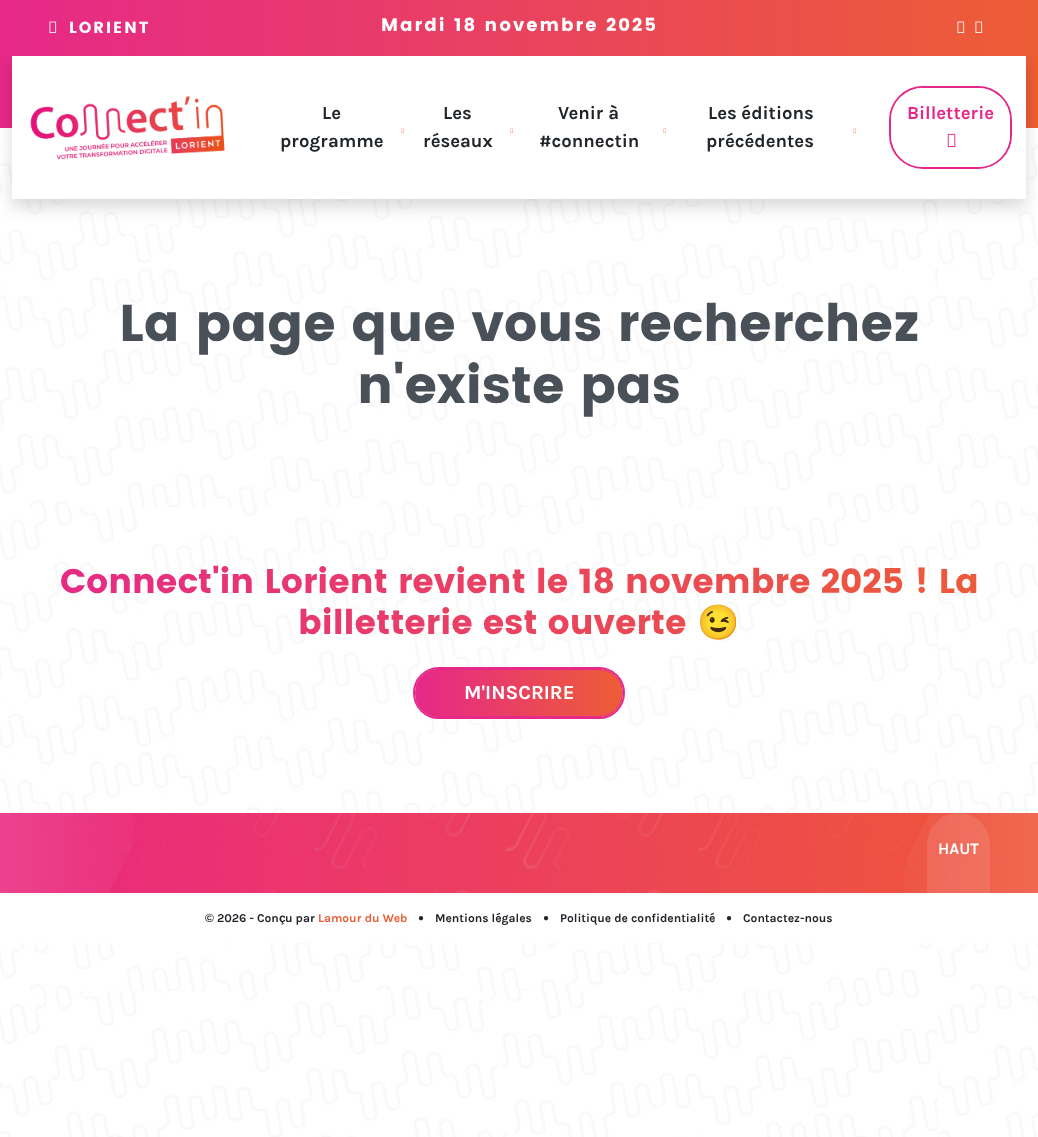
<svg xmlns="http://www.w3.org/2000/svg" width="1038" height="1137">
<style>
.a{font:bold 16px Poppins;letter-spacing:2px;fill:#fff}
.b{font:bold 18px Poppins;letter-spacing:2px;fill:#fff}
.c{font:bold 18.5px Karla;fill:#212529}
.d{font:bold 18.5px Karla;fill:#e62889}
.e{font:bold 51.6px Poppins;fill:#495057}
.f{font:bold 34.05px Poppins;fill:url(#g4)}
.g{font:bold 34.05px Noto Color Emoji;fill:url(#g4)}
.h{font:bold 20px Karla;fill:#fff}
.i{font:bold 16px Karla;fill:#fff}
.j{font:bold 12px Liberation Sans;fill:#212529}
.k{font:bold 12px Karla;fill:#212529}
.l{font:bold 12px Karla;fill:#ed5d35}
.m{font:bold 10px Liberation Sans;fill:#212529}
</style>
<defs>
<linearGradient id="g1" gradientUnits="userSpaceOnUse" x1="0" y1="92" x2="1038" y2="92"><stop offset="0" stop-color="#e62889"/><stop offset="1" stop-color="#ed5d35"/></linearGradient>
<linearGradient id="g2" gradientUnits="userSpaceOnUse" x1="0" y1="28" x2="1038" y2="28"><stop offset="0" stop-color="#e62889"/><stop offset="1" stop-color="#ed5d35"/></linearGradient>
<clipPath id="clip1"><rect x="415" y="669" width="208" height="48" rx="24"/></clipPath>
<linearGradient id="g3" gradientUnits="userSpaceOnUse" x1="416" y1="693" x2="622" y2="693"><stop offset="0" stop-color="#e62889"/><stop offset="1" stop-color="#ed5d35"/></linearGradient>
<linearGradient id="g4" gradientUnits="userSpaceOnUse" x1="12" y1="604" x2="1026" y2="604"><stop offset="0" stop-color="#e62889"/><stop offset="1" stop-color="#ed5d35"/></linearGradient>
</defs>
<rect width="100%" height="100%" fill="#fff"/>
<image href="1.png" x="0" y="128" width="1038" height="1009"/>
<path fill="url(#g1)" d="M0 56h1038v72H0z"/>
<path fill="#00000026" filter="blur(8px)" d="M12 64h1014v143H12z"/>
<path fill="url(#g2)" d="M0 0h1038v56H0z"/>
<image href="2.png" x="49" y="21" width="8" height="12"/>
<image href="3.png" x="957" y="21" width="8" height="12"/>
<image href="4.png" x="975" y="21" width="8" height="12"/>
<path fill="#fff" d="M12 56h1014v143H12z"/>
<image href="5.png" x="30" y="96" width="195" height="64"/>
<image href="6.png" x="401" y="128" width="4" height="5"/>
<image href="6.png" x="510" y="128" width="4" height="5"/>
<image href="6.png" x="663" y="128" width="4" height="5"/>
<image href="6.png" x="853" y="128" width="4" height="5"/>
<rect fill="none" stroke="#e62889" stroke-width="2" x="890" y="87" width="121" height="81" rx="33"/>
<rect fill="#fff" x="891" y="88" width="119" height="79" rx="32"/>
<image href="7.png" x="947" y="133" width="9" height="14"/>
<rect fill="none" stroke="#e62889" stroke-width="2" x="414" y="668" width="210" height="50" rx="25"/>
<g clip-path="url(#clip1)">
<path fill="url(#g3)" d="M416 669h206v48H416z"/>
</g>
<rect fill="none" stroke="#e62889" x="415.5" y="669.5" width="207" height="47" rx="23.5"/>
<image href="8.png" x="0" y="813" width="1038" height="80"/>
<path fill="#ffffff1a" d="M958.5 813c17.5 0 31.5 14 31.5 31.5v48.5h-63v-48.5c0-17.5 14-31.5 31.5-31.5z"/>
<path fill="#fff" d="M0 893h1038v50H0z"/>
<text class="a" x="69" y="33">LORIENT</text>
<text class="b" x="381" y="31">Mardi 18 novembre 2025</text>
<text class="c" x="322" y="119">Le</text>
<text class="c" x="280" y="147">programme</text>
<text class="c" x="443" y="119">Les</text>
<text class="c" x="423" y="147">réseaux</text>
<text class="c" x="558" y="119">Venir à</text>
<text class="c" x="539" y="147">#connectin</text>
<text class="c" x="708" y="119">Les éditions</text>
<text class="c" x="706" y="147">précédentes</text>
<text class="d" x="907" y="119">Billetterie</text>
<text class="e" x="119" y="341">La page que vous recherchez</text>
<text class="e" x="357" y="403">n'existe pas</text>
<text class="f" x="60" y="593">Connect'in Lorient revient le 18 novembre 2025 ! La</text>
<text class="f" x="298" y="634">billetterie est ouverte</text>
<text class="g" x="697" y="634">😉</text>
<text class="h" x="464" y="699">M'INSCRIRE</text>
<text class="i" x="938" y="854">HAUT</text>
<text class="j" x="205" y="922">©</text>
<text class="k" x="217" y="922">2026 - Con</text>
<text class="j" x="279" y="922">ç</text>
<text class="k" x="285" y="922">u par</text>
<text class="l" x="318" y="922">Lamour du Web</text>
<text class="m" x="418" y="921">●</text>
<text class="k" x="435" y="922">Mentions légales</text>
<text class="m" x="543" y="921">●</text>
<text class="k" x="560" y="922">Politique de confidentialité</text>
<text class="m" x="726" y="921">●</text>
<text class="k" x="743" y="922">Contactez-nous</text>
</svg>
